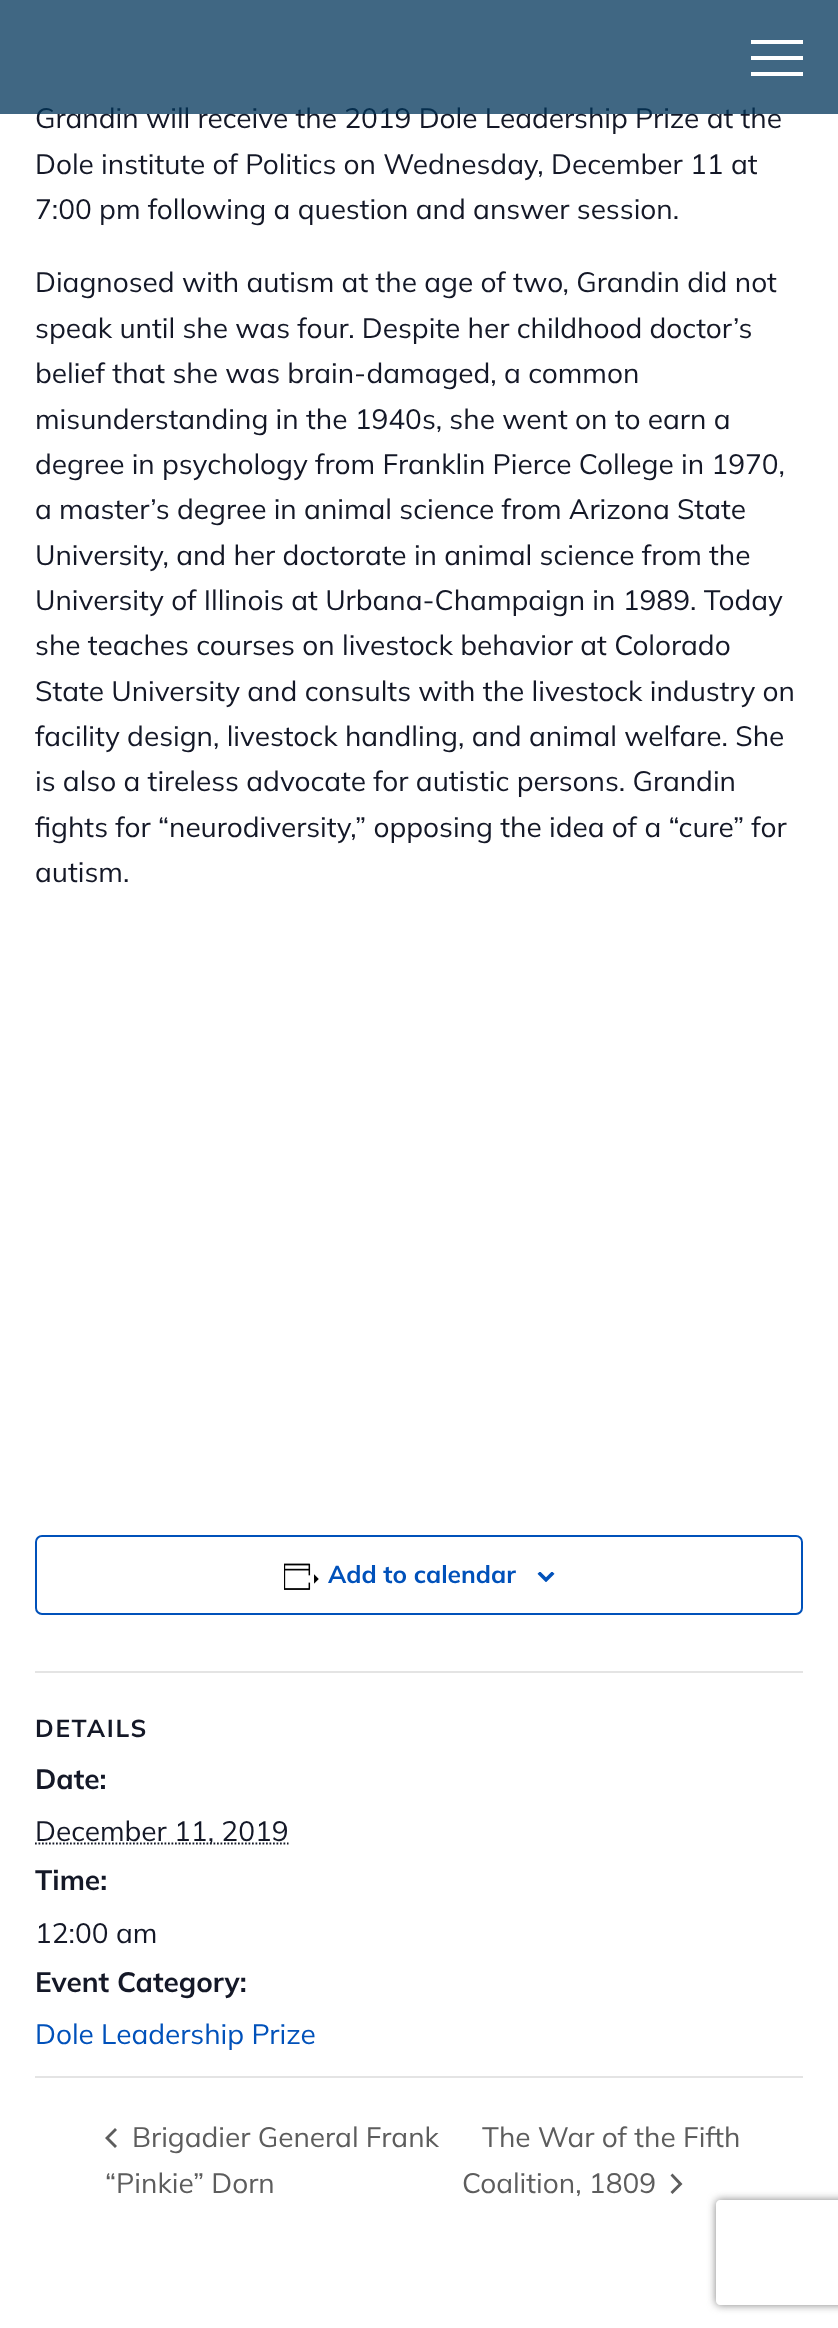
<svg xmlns="http://www.w3.org/2000/svg" width="838" height="2328">
<style>
.a{font:28px Mulish;fill:#141827}
.b{font:bold 24.5px Mulish;fill:#0051ba}
.c{font:bold 24.5px Mulish;letter-spacing:1.75px;fill:#141827}
.d{font:bold 28px Mulish;fill:#141827}
.e{font:28px Mulish;fill:#0051ba}
.f{font:28px Mulish;fill:#5d5d5d}
</style>
<defs>
<clipPath id="clip1"><path d="M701 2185h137v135h-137zm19 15h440c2 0 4 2 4 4v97c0 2-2 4-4 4h-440c-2 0-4-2-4-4v-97c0-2 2-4 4-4z" clip-rule="evenodd"/></clipPath>
</defs>
<rect width="100%" height="100%" fill="#fff"/>
<rect fill="none" stroke="#0051ba" stroke-width="2" x="36" y="1536" width="766" height="78" rx="6"/>
<image href="1.png" x="284" y="1563" width="35" height="27"/>
<image href="2.png" x="537" y="1572" width="18" height="10"/>
<path fill="#e4e4e4" d="M35 1671h768v2H35z"/>
<path fill="none" stroke="#141827" stroke-width="1.8" stroke-dasharray="1.75 1.75" d="M35 1843.5h253.5"/>
<path fill="#e4e4e4" d="M35 2076h768v2H35z"/>
<path fill="#5d5d5d" d="M117 2146l-2 2l-10-10l10-10l2 2l-8 8z"/>
<path fill="#5d5d5d" d="M670.5 2175.5l2-2l10 10.5l-10 10l-2-2l8-8z"/>
<g clip-path="url(#clip1)">
<rect fill="#808080" filter="blur(4.5px)" x="716" y="2200" width="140" height="105" rx="4"/>
</g>
<text class="a" x="35" y="128">Grandin will receive the 2019 Dole Leadership Prize at the</text>
<path fill="#003459bf" d="M0 0h838v114H0z"/>
<path fill="#fff" d="M751 72h52v4H751z"/>
<path fill="#fff" d="M751 56h52v4H751z"/>
<path fill="#fff" d="M751 40h52v4H751z"/>
<text class="a" x="35" y="174">Dole institute of Politics on Wednesday, December 11 at</text>
<text class="a" x="35" y="219">7:00 pm following a question and answer session.</text>
<text class="a" x="35" y="292">Diagnosed with autism at the age of two, Grandin did not</text>
<text class="a" x="35" y="338">speak until she was four. Despite her childhood doctor’s</text>
<text class="a" x="35" y="383">belief that she was brain-damaged, a common</text>
<text class="a" x="35" y="429">misunderstanding in the 1940s, she went on to earn a</text>
<text class="a" x="35" y="474">degree in psychology from Franklin Pierce College in 1970,</text>
<text class="a" x="35" y="519">a master’s degree in animal science from Arizona State</text>
<text class="a" x="35" y="565">University, and her doctorate in animal science from the</text>
<text class="a" x="35" y="610">University of Illinois at Urbana-Champaign in 1989. Today</text>
<text class="a" x="35" y="655">she teaches courses on livestock behavior at Colorado</text>
<text class="a" x="35" y="701">State University and consults with the livestock industry on</text>
<text class="a" x="35" y="746">facility design, livestock handling, and animal welfare. She</text>
<text class="a" x="35" y="791">is also a tireless advocate for autistic persons. Grandin</text>
<text class="a" x="35" y="837">fights for “neurodiversity,” opposing the idea of a “cure” for</text>
<text class="a" x="35" y="882">autism.</text>
<text class="b" x="328" y="1583">Add to calendar</text>
<text class="c" x="35" y="1737">DETAILS</text>
<text class="d" x="35" y="1789">Date:</text>
<text class="a" x="35" y="1841">December 11, 2019</text>
<text class="d" x="35" y="1890">Time:</text>
<text class="a" x="35" y="1943">12:00 am</text>
<text class="d" x="35" y="1992">Event Category:</text>
<text class="e" x="35" y="2044">Dole Leadership Prize</text>
<text class="f" x="132" y="2147">Brigadier General Frank</text>
<text class="f" x="105" y="2193">“Pinkie” Dorn</text>
<text class="f" x="482" y="2147">The War of the Fifth</text>
<text class="f" x="462" y="2193">Coalition, 1809</text>
</svg>
